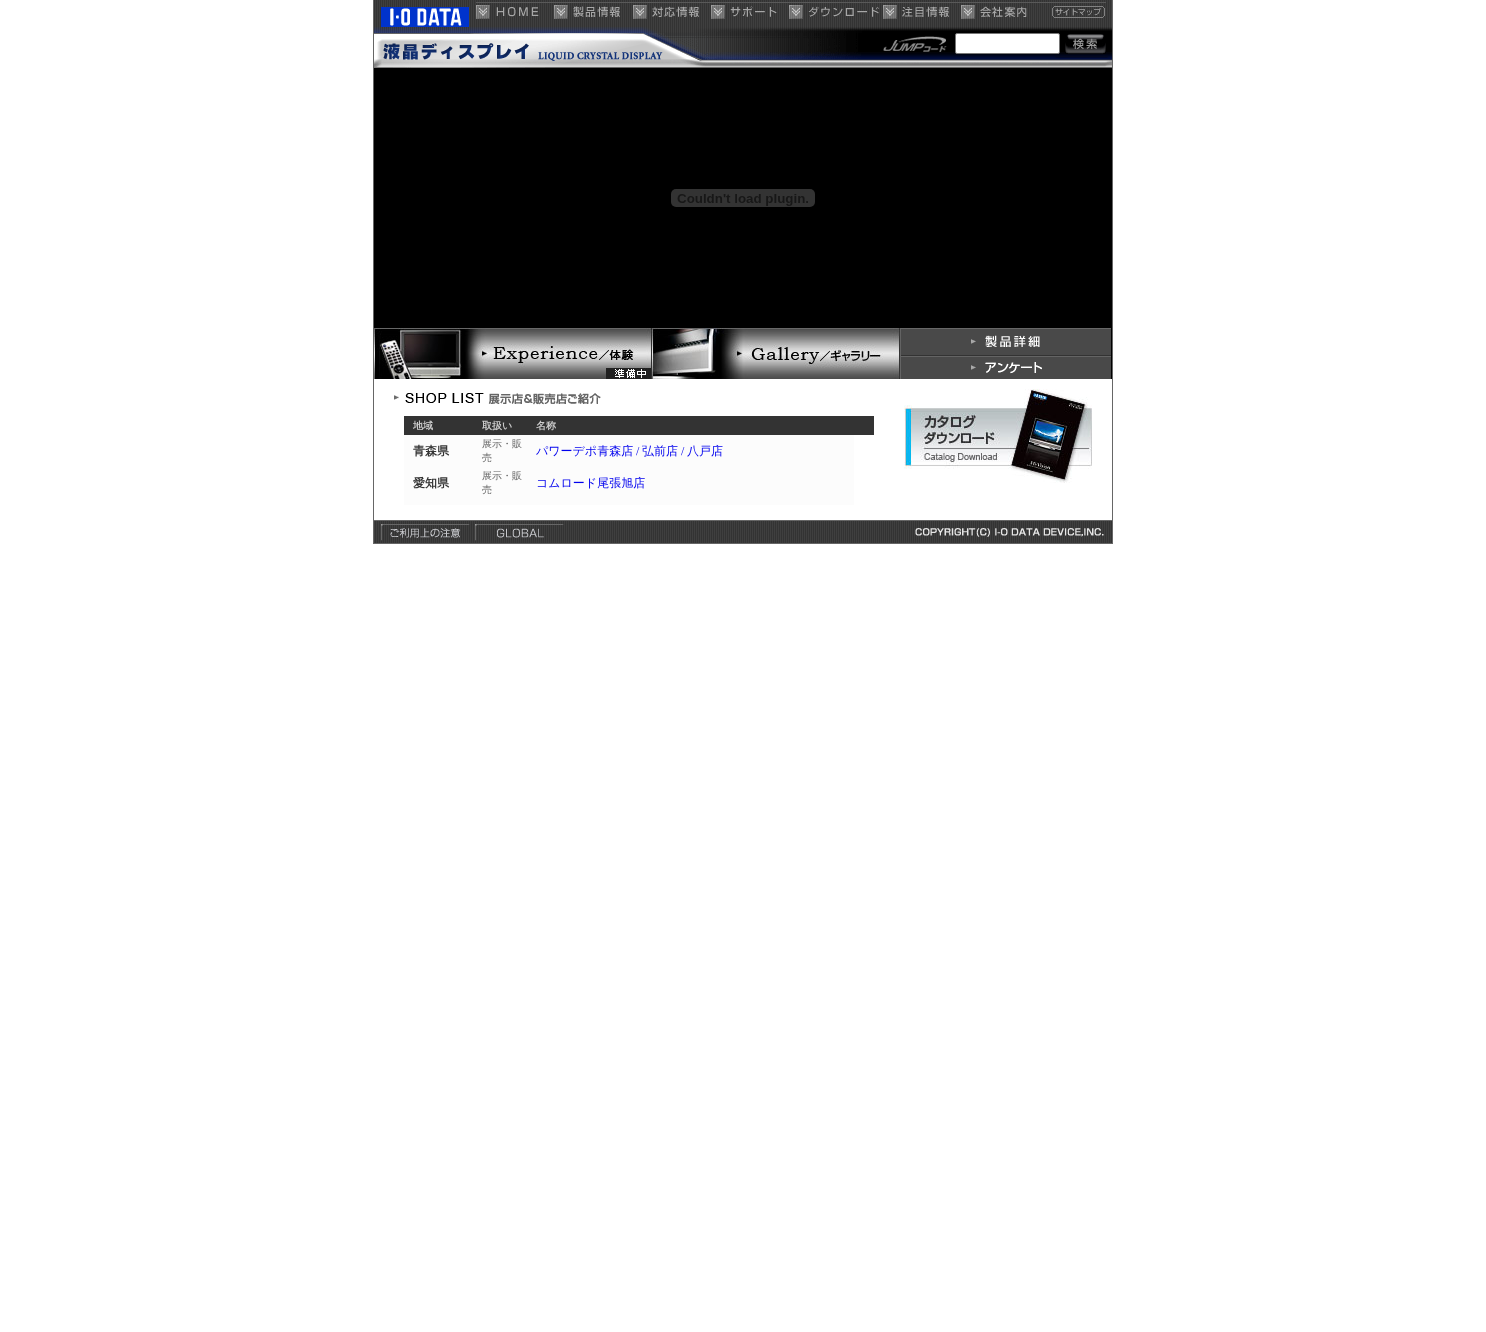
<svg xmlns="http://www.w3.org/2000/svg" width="1486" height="1332">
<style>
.a{font:bold 10px WenQuanYi Zen Hei;fill:#ccc}
.b{font:bold 12px WenQuanYi Zen Hei;fill:#333}
.c{font:500 10px WenQuanYi Zen Hei;fill:#666}
.d{font:500 12px WenQuanYi Zen Hei;fill:#00e}
.e{font:12px Liberation Serif;fill:#00e}
</style>
<rect width="100%" height="100%" fill="#fff"/>
<path fill="#333" d="M374 0h733v27H374z"/>
<path fill="#666" d="M373 0h1v27H373z"/>
<image href="1.png" x="375" y="0" width="101" height="27"/>
<image href="2.png" x="381" y="7" width="88" height="20"/>
<image href="3.png" x="477" y="0" width="629" height="27"/>
<path fill="#595959" d="M476 2h630v1H476z"/>
<image href="4.png" x="476" y="5" width="63" height="14"/>
<image href="5.png" x="554" y="5" width="66" height="14"/>
<image href="6.png" x="633" y="5" width="66" height="14"/>
<image href="7.png" x="711" y="5" width="66" height="14"/>
<image href="8.png" x="789" y="5" width="90" height="14"/>
<image href="9.png" x="883" y="5" width="66" height="14"/>
<image href="10.png" x="961" y="5" width="66" height="14"/>
<image href="11.png" x="1052" y="6" width="53" height="12"/>
<image href="12.png" x="1107" y="0" width="5" height="27"/>
<path fill="#666" d="M1112 0h1v27H1112z"/>
<image href="13.png" x="373" y="27" width="740" height="6"/>
<image href="14.png" x="709" y="33" width="403" height="35"/>
<path fill="#666" d="M373 33h1v487H373z"/>
<image href="15.png" x="374" y="33" width="335" height="35"/>
<image href="16.png" x="883" y="36" width="64" height="16"/>
<rect fill="#fff" stroke="#767676" x="955.5" y="33.5" width="104" height="20" rx="1.5"/>
<image href="17.png" x="1065" y="34" width="41" height="20"/>
<path fill="#666" d="M1112 33h1v487H1112z"/>
<path fill="#000" d="M374 68h738v260H374z"/>
<image href="18.png" x="671" y="189" width="144" height="18"/>
<image href="19.png" x="374" y="328" width="278" height="51"/>
<image href="20.png" x="652" y="328" width="248" height="51"/>
<image href="21.png" x="900" y="328" width="212" height="26"/>
<image href="22.png" x="900" y="354" width="212" height="25"/>
<image href="23.png" x="394" y="393" width="207" height="12"/>
<path fill="#333" d="M404 416h470v19H404z"/>
<path fill="#fcfcfc" d="M404 435h450v70H404z"/>
<image href="24.png" x="904" y="389" width="188" height="94"/>
<path fill="#666" d="M373 520h740v1H373z"/>
<image href="25.png" x="374" y="521" width="738" height="22"/>
<path fill="#666" d="M373 521h1v22H373z"/>
<image href="26.png" x="381" y="524" width="89" height="17"/>
<image href="27.png" x="475" y="524" width="89" height="17"/>
<image href="28.png" x="915" y="528" width="189" height="9"/>
<path fill="#666" d="M1112 521h1v22H1112z"/>
<path fill="#666" d="M373 543h740v1H373z"/>
<text class="a" x="413" y="429">地域</text>
<text class="a" x="482" y="429">取扱い</text>
<text class="a" x="536" y="429">名称</text>
<text class="b" x="413" y="455">青森県</text>
<text class="c" x="482" y="447">展示・販</text>
<text class="c" x="482" y="461">売</text>
<text class="d" x="536" y="455">パワーデポ青森店</text>
<text class="e" x="636" y="455">/</text>
<text class="d" x="642" y="455">弘前店</text>
<text class="e" x="681" y="455">/</text>
<text class="d" x="687" y="455">八戸店</text>
<text class="b" x="413" y="487">愛知県</text>
<text class="c" x="482" y="479">展示・販</text>
<text class="c" x="482" y="493">売</text>
<text class="d" x="536" y="487">コムロード尾張旭店</text>
</svg>
